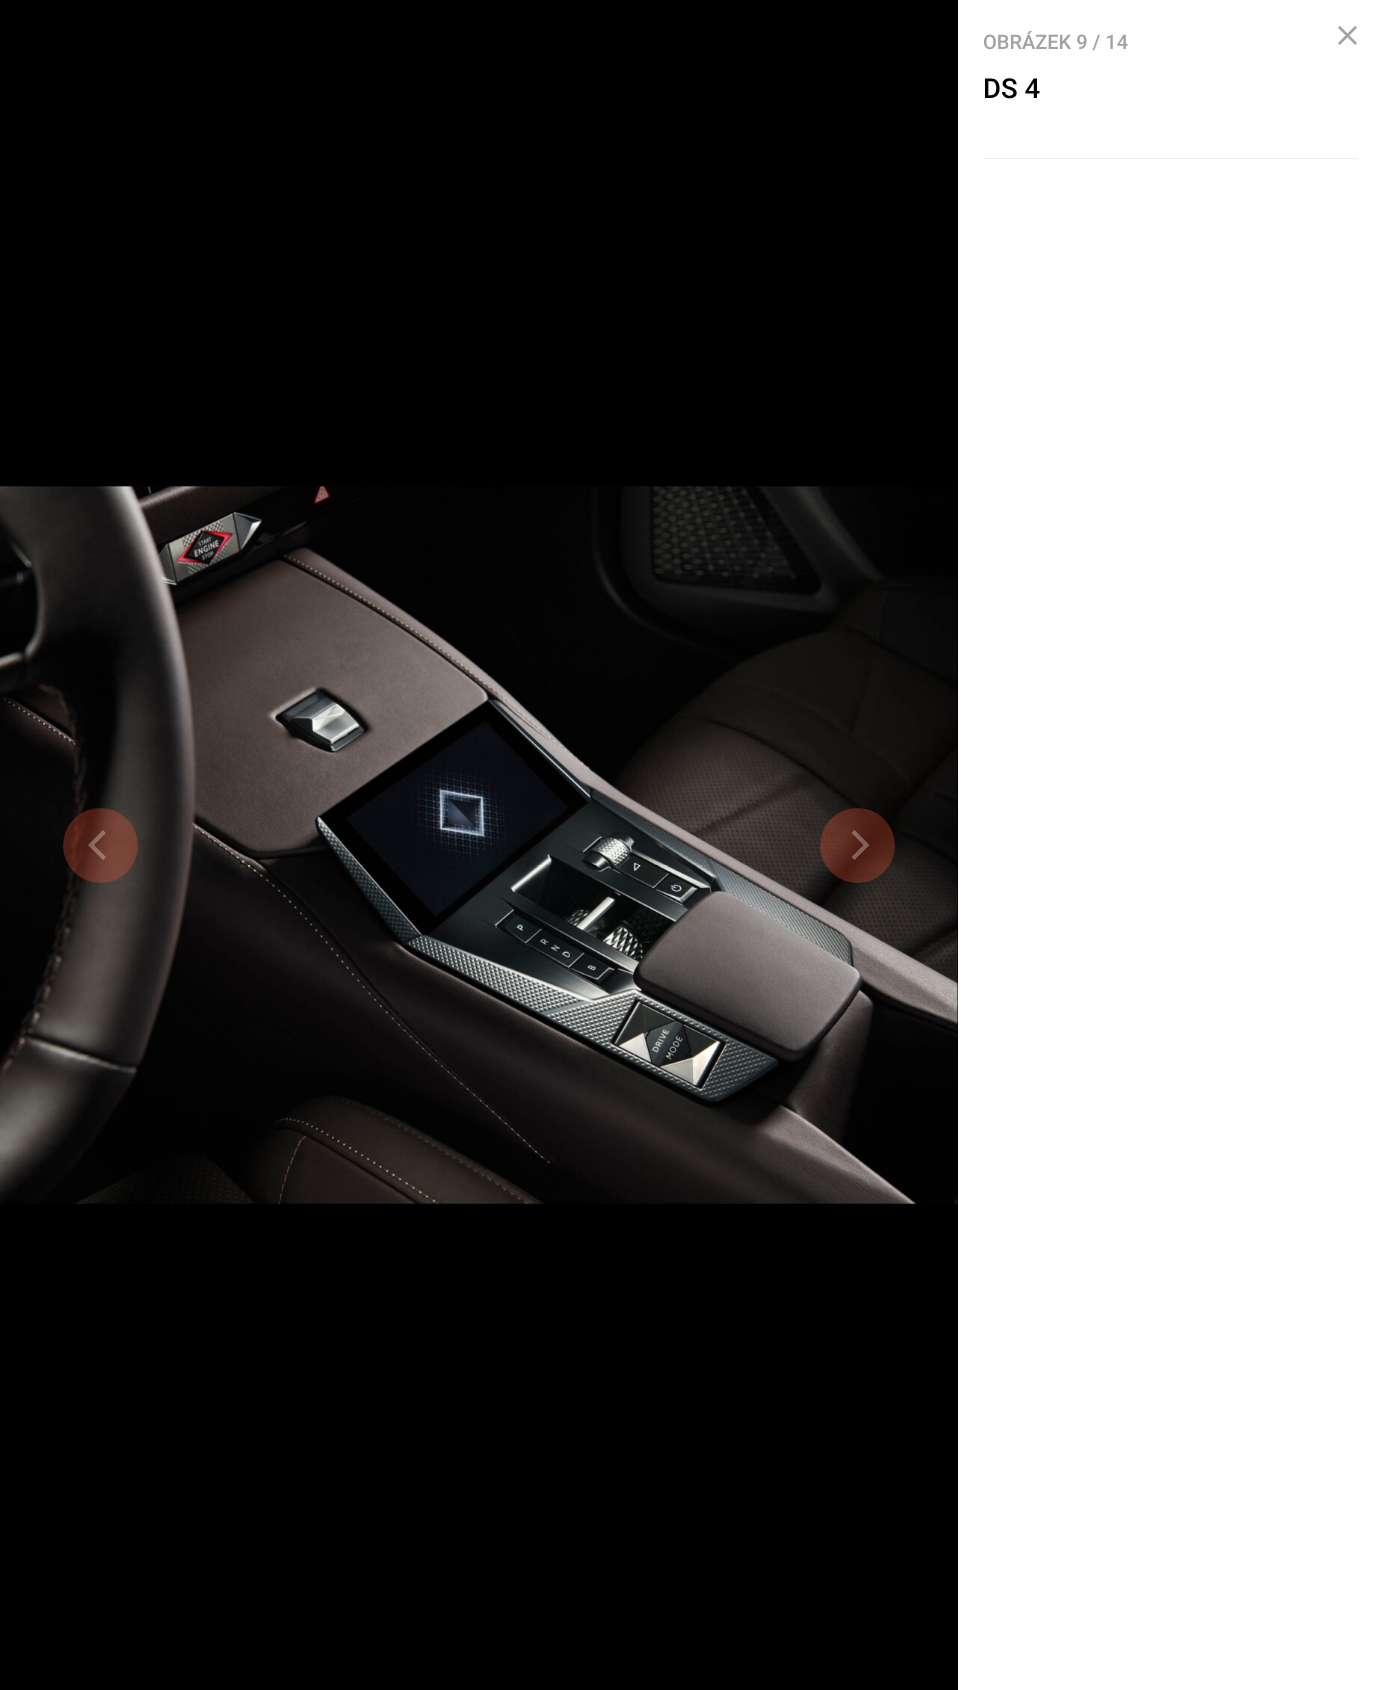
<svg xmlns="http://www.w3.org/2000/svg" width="1382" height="1690">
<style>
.a{font:500 20px Roboto;fill:#a2a2a2}
.b{font:500 27.5px Roboto;fill:#000}
</style>
<rect width="100%" height="100%" fill="#000"/>
<path fill="#fff" d="M958 0h424v1690H958z"/>
<path fill="#eee" d="M983 158h375v1H983z"/>
<image href="1.png" x="1338" y="26" width="19" height="19"/>
<image href="2.png" x="0" y="485" width="958" height="719"/>
<circle fill="#f156354d" cx="100.5" cy="845.5" r="37.5"/>
<path fill="#ffffff4d" d="M88 845l15 15l3-3l-12-12l12-12l-3-3z"/>
<circle fill="#f156354d" cx="857.5" cy="845.5" r="37.5"/>
<path fill="#ffffff4d" d="M869.5 845l-15-15l-3 3l12 12l-12 12l3 3z"/>
<text class="a" x="983" y="49">OBRÁZEK 9 / 14</text>
<text class="b" x="983" y="98">DS 4</text>
</svg>
